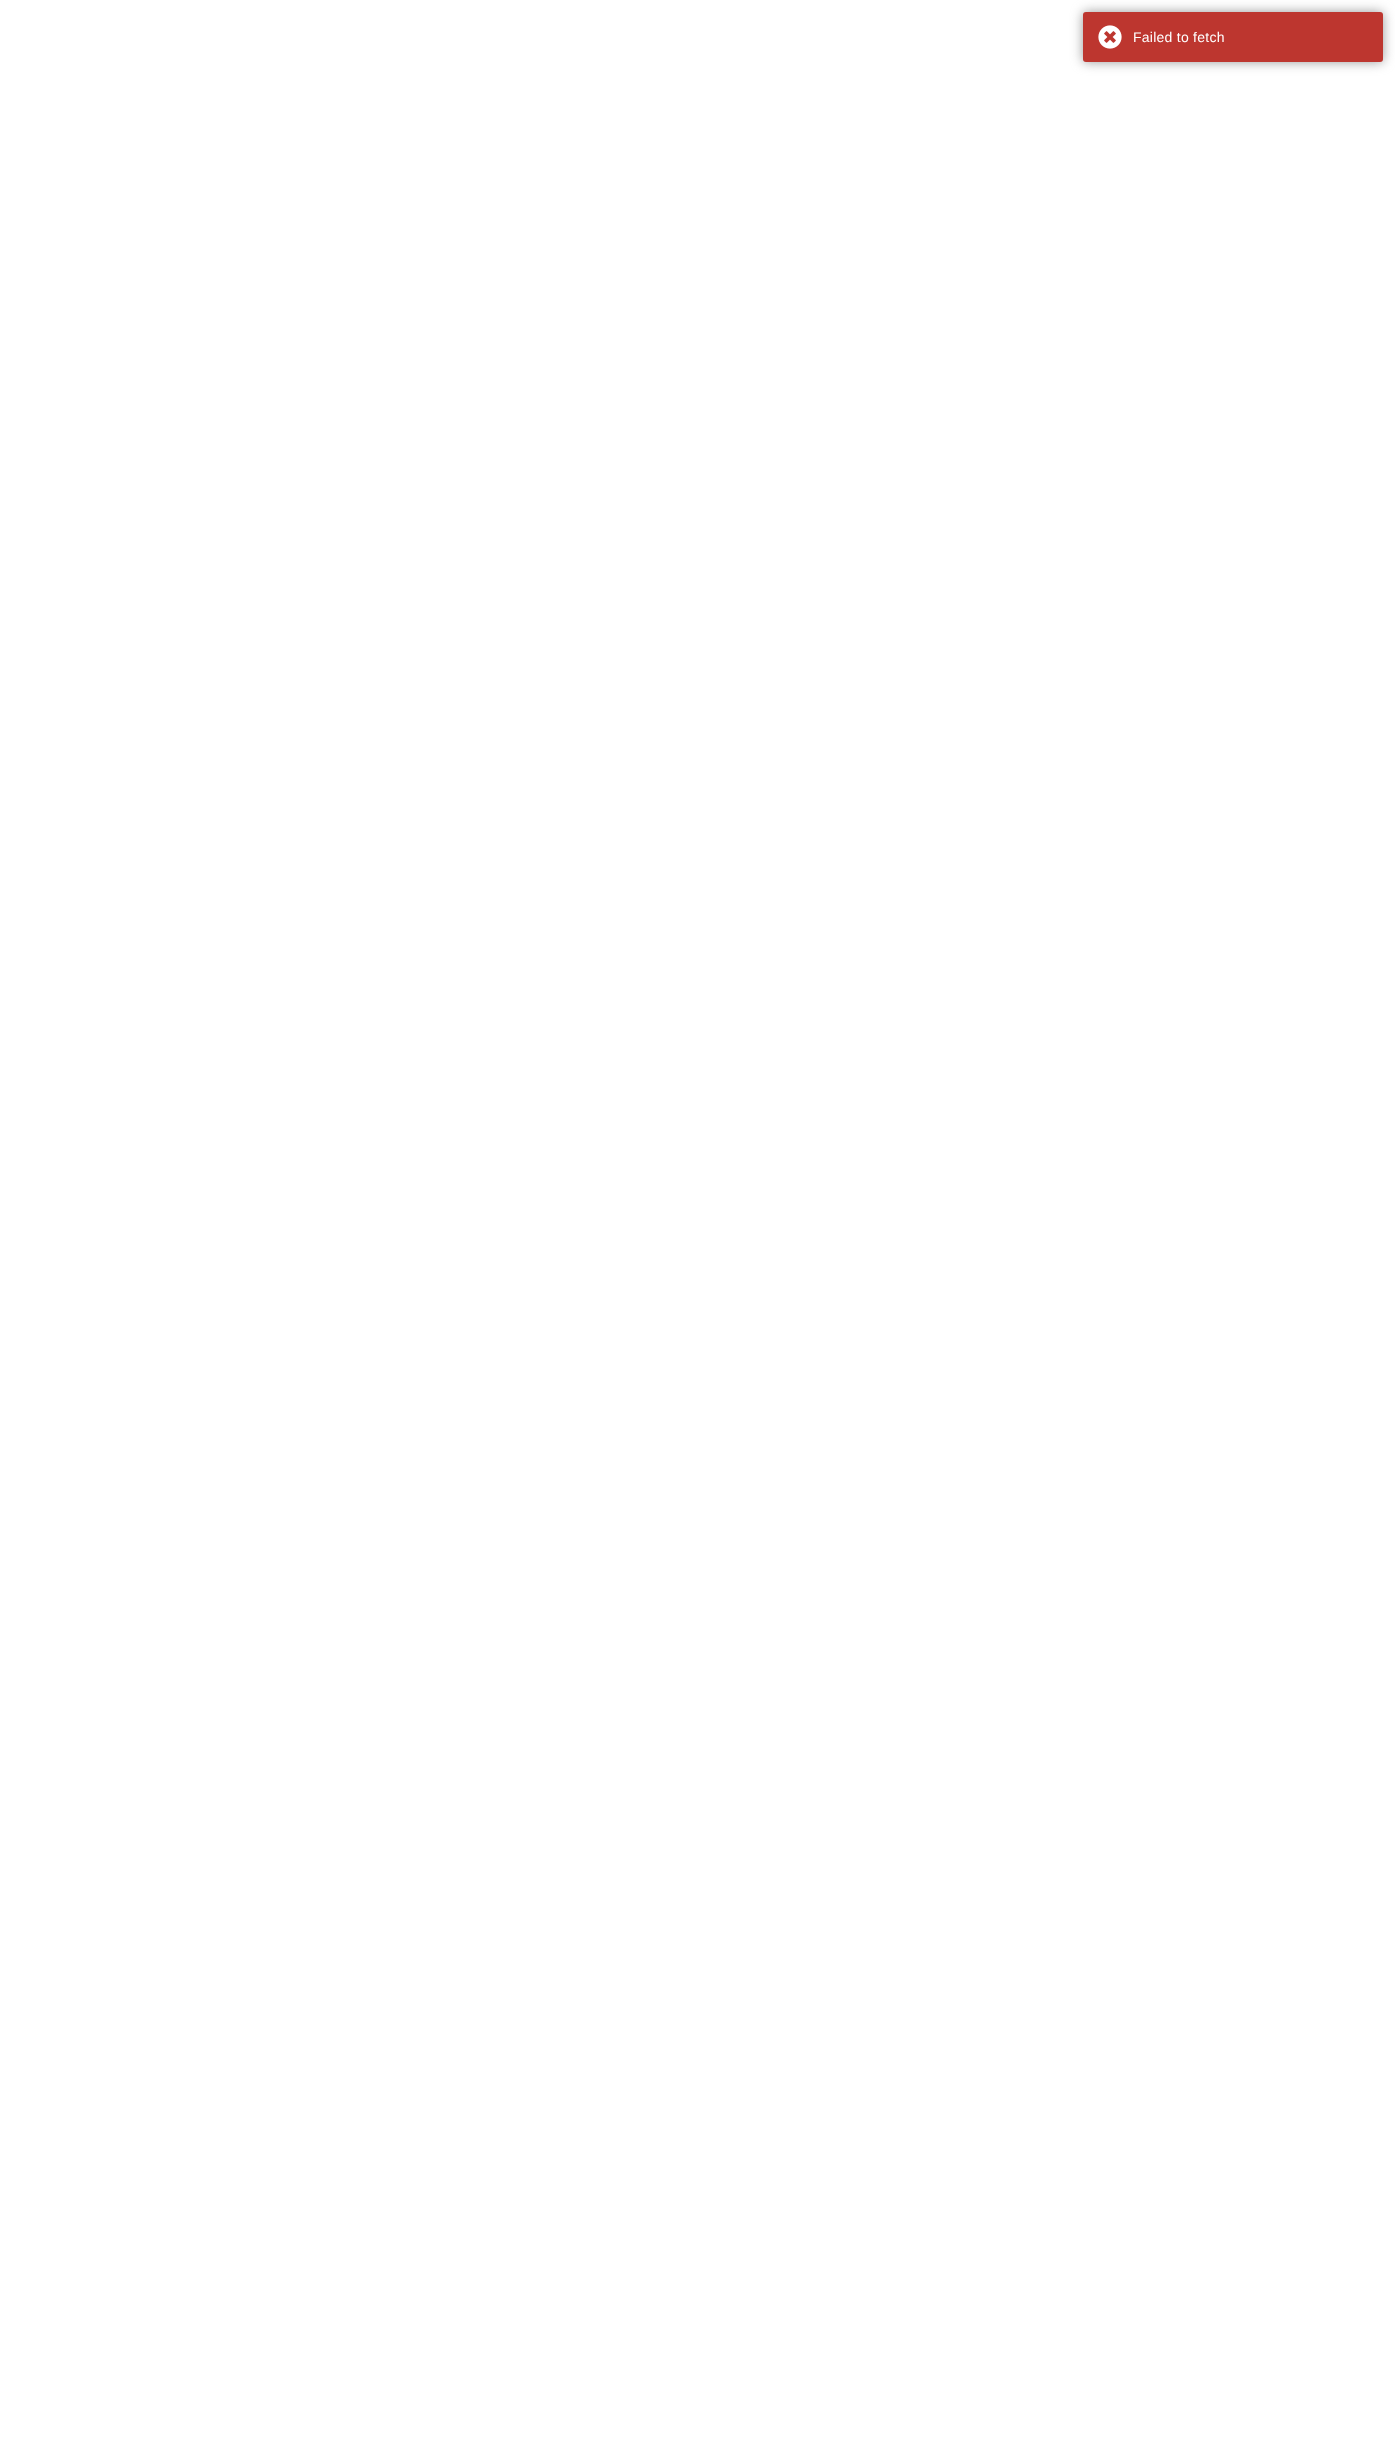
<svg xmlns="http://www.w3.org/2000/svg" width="1395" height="2448">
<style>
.a{font:14px Liberation Sans;letter-spacing:0.25px;fill:#fff}
</style>
<rect width="100%" height="100%" fill="#fff"/>
<rect fill="#999" filter="blur(6px)" x="1083" y="12" width="300" height="50" rx="3"/>
<rect fill="#bd362f" x="1083" y="12" width="300" height="50" rx="3"/>
<image href="1.png" x="1098" y="25" width="24" height="24"/>
<text class="a" x="1133" y="42">Failed to fetch</text>
</svg>
